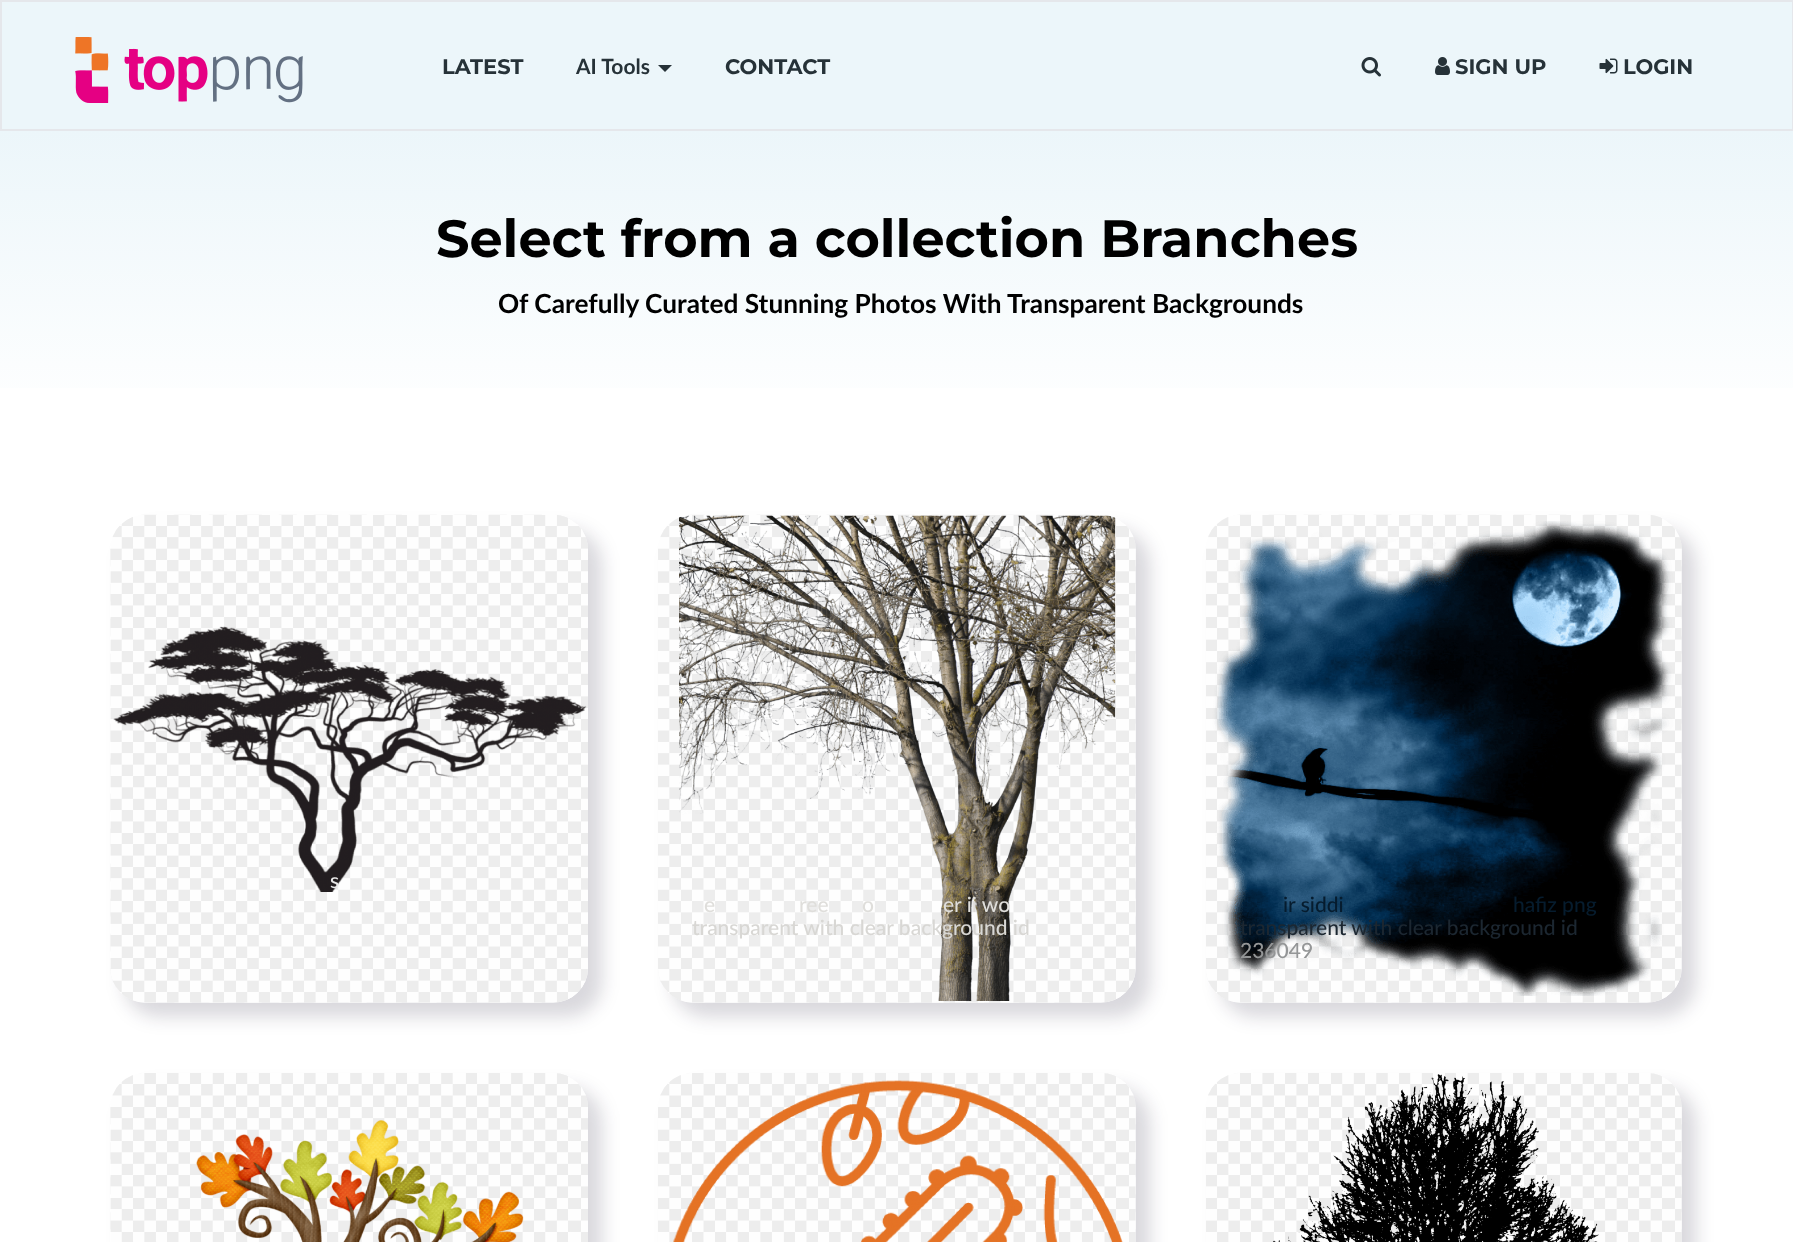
<svg xmlns="http://www.w3.org/2000/svg" width="1793" height="1242">
<style>
.a{font:bold 21px Montserrat;fill:#263238}
.b{font:bold 21px Lato;fill:#263238}
.c{font:bold 52.5px Montserrat;fill:#000}
.d{font:bold 26.25px Lato;fill:#000}
.e{font:500 21px Lato;fill:#e9e9e9}
.f{font:500 21px Lato;fill:#dfdedb}
.g{font:500 21px Lato;fill:#d8d7d4}
.h{font:500 21px Lato;fill:#061c2e}
.i{font:500 21px Lato;fill:#1c2731}
.j{font:500 21px Lato;fill:#949697}
</style>
<defs>
<linearGradient id="g1" gradientUnits="userSpaceOnUse" x1="897" y1="131" x2="897" y2="427"><stop offset="0" stop-color="#ecf6fa"/><stop offset="1" stop-color="#fff"/></linearGradient>
</defs>
<rect width="100%" height="100%" fill="#fff"/>
<path fill="#ecf6fa" stroke="#e5e7eb" stroke-width="2" d="M1 1h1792v129H1z"/>
<image href="1.png" x="75" y="37" width="228" height="66"/>
<path fill="#263238" d="M658 65h14l-7 7z"/>
<image href="2.png" x="1361" y="57" width="20" height="20"/>
<image href="3.png" x="1435" y="57" width="15" height="18"/>
<image href="4.png" x="1599" y="58" width="19" height="16"/>
<path fill="url(#g1)" d="M0 131h1793v257H0z"/>
<rect fill="#110c2e29" filter="blur(9px)" x="124" y="529" width="478" height="488" rx="35"/>
<image href="5.png" x="110" y="514" width="478" height="489"/>
<image href="6.png" x="110" y="515" width="478" height="488"/>
<rect fill="#110c2e29" filter="blur(9px)" x="672" y="529" width="478" height="488" rx="35"/>
<image href="7.png" x="658" y="514" width="478" height="489"/>
<image href="8.png" x="658" y="515" width="478" height="488"/>
<rect fill="#110c2e29" filter="blur(9px)" x="1220" y="529" width="476" height="488" rx="35"/>
<image href="9.png" x="1206" y="514" width="476" height="489"/>
<image href="10.png" x="1206" y="515" width="476" height="488"/>
<rect fill="#110c2e29" filter="blur(9px)" x="124" y="1087" width="478" height="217" rx="35"/>
<image href="11.png" x="110" y="1073" width="478" height="169"/>
<image href="12.png" x="110" y="1073" width="478" height="169"/>
<rect fill="#110c2e29" filter="blur(9px)" x="672" y="1087" width="478" height="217" rx="35"/>
<image href="13.png" x="658" y="1073" width="478" height="169"/>
<image href="14.png" x="658" y="1073" width="478" height="169"/>
<rect fill="#110c2e29" filter="blur(9px)" x="1220" y="1087" width="476" height="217" rx="35"/>
<image href="15.png" x="1206" y="1073" width="476" height="169"/>
<image href="16.png" x="1206" y="1073" width="476" height="169"/>
<text class="a" x="442" y="74">LATEST</text>
<text class="b" x="576" y="74">AI Tools</text>
<text class="a" x="725" y="74">CONTACT</text>
<text class="a" x="1455" y="74">SIGN UP</text>
<text class="a" x="1623" y="74">LOGIN</text>
<text class="c" x="436" y="257">Select from a collection Branches</text>
<text class="d" x="498" y="313">Of Carefully Curated Stunning Photos With Transparent Backgrounds</text>
<text class="e" x="330" y="888">s</text>
<text class="f" x="704" y="912">e</text>
<text class="f" x="799" y="912">ree</text>
<text class="f" x="862" y="912">o</text>
<text class="f" x="943" y="912">er ii wo</text>
<text class="g" x="692" y="935">transparent with clear background id</text>
<text class="h" x="1283" y="912">ir siddi</text>
<text class="h" x="1513" y="912">hafiz png</text>
<text class="i" x="1240" y="935">transparent with clear background id</text>
<text class="j" x="1240" y="958">236049</text>
</svg>
